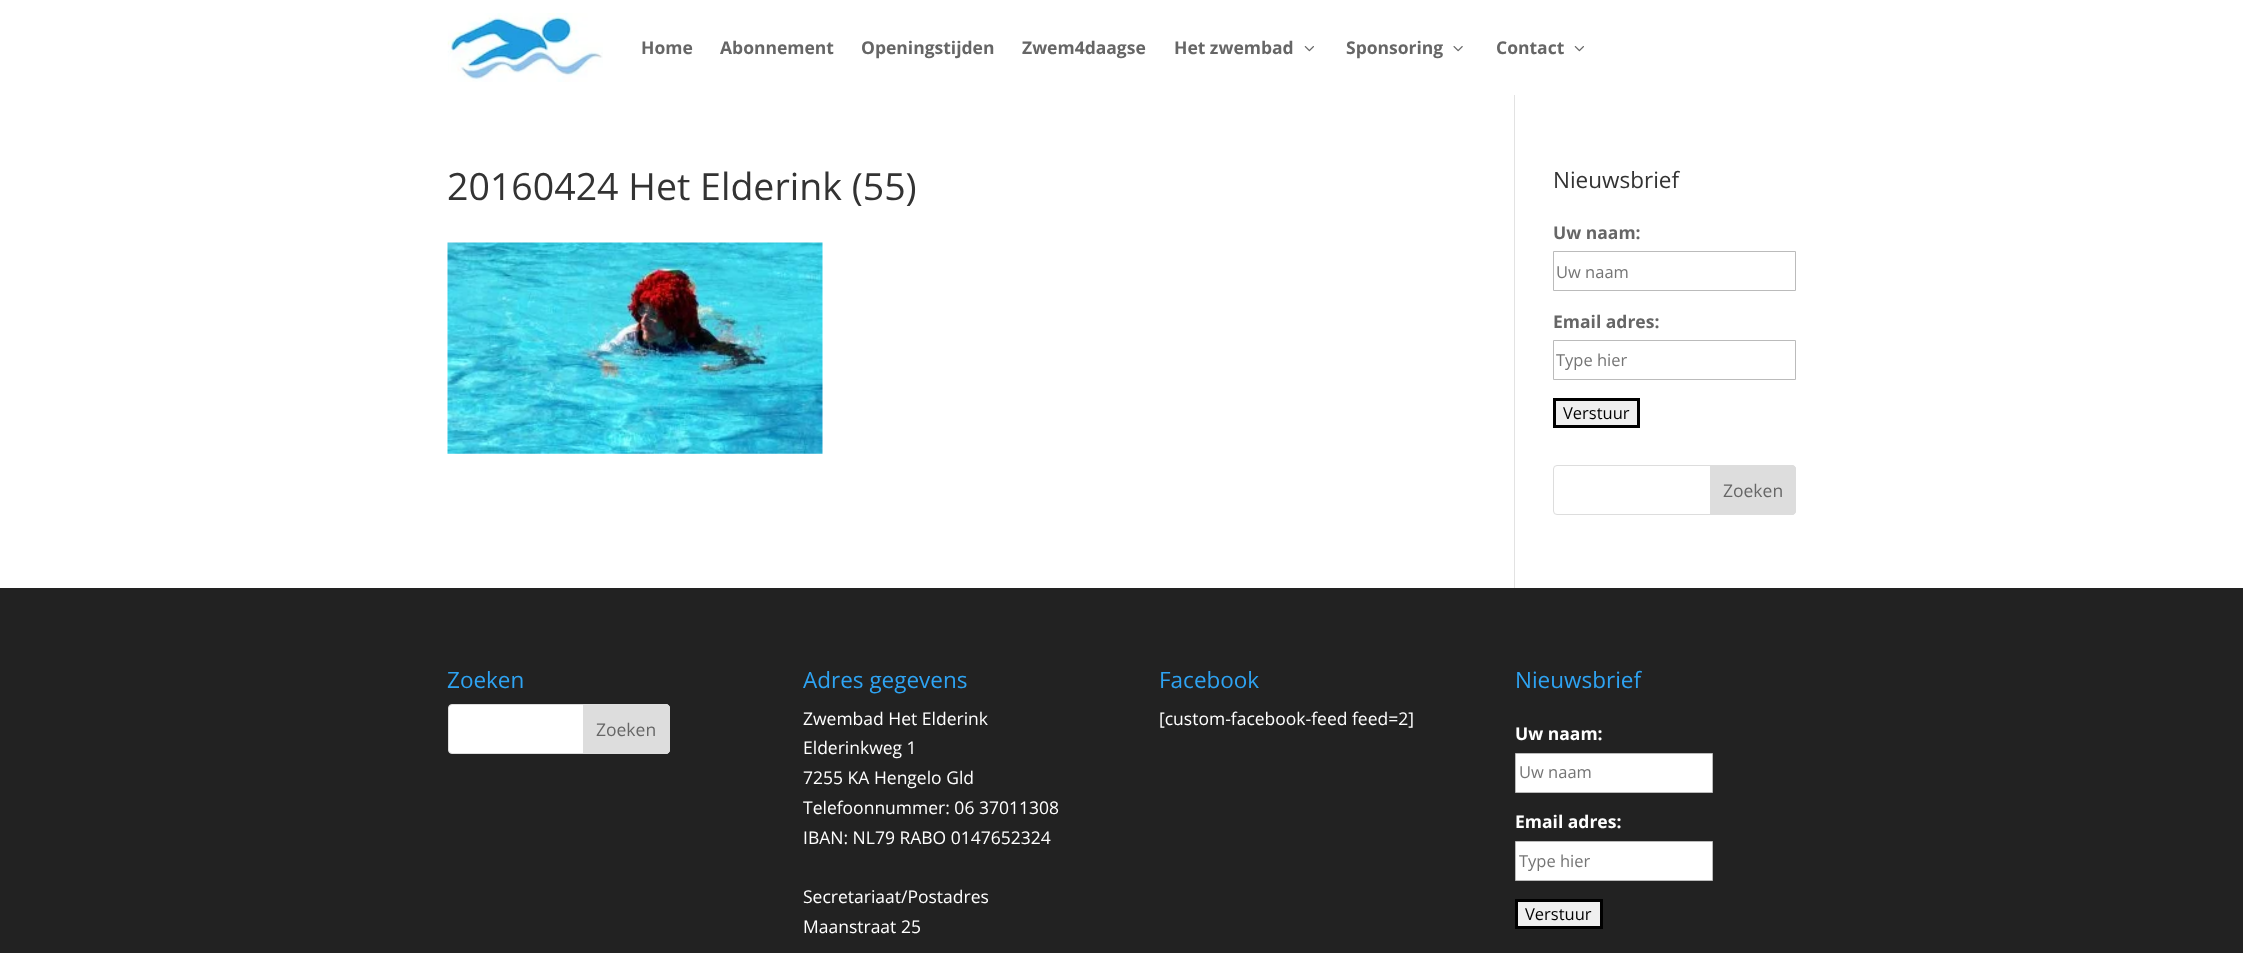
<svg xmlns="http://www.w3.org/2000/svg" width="2243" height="953">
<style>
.a{font:bold 17.5px Open Sans;fill:#666}
.b{font:37.5px Open Sans;fill:#333}
.c{font:22.5px Open Sans;fill:#333}
.d{font:16.5px Open Sans;fill:#757575}
.e{font:16.5px Open Sans;fill:#000}
.f{font:17.5px Open Sans;fill:#666}
.g{font:22.5px Open Sans;fill:#2ea3f2}
.h{font:17.5px Open Sans;fill:#fff}
.i{font:bold 17.5px Open Sans;fill:#fff}
</style>
<rect width="100%" height="100%" fill="#fff"/>
<image href="1.png" x="447" y="13" width="156" height="69"/>
<image href="2.png" x="1304" y="46" width="10" height="6"/>
<image href="3.png" x="1453" y="46" width="10" height="6"/>
<image href="2.png" x="1574" y="46" width="10" height="6"/>
<path fill="#e2e2e2" d="M1514 95h1v493H1514z"/>
<image href="4.png" x="447" y="242" width="376" height="212"/>
<path fill="none" stroke="#bbb" d="M1553.5 251.5h242v39H1553.5z"/>
<path fill="none" stroke="#bbb" d="M1553.5 340.5h242v39H1553.5z"/>
<path fill="#efefef" stroke="#000" stroke-width="3" d="M1554.5 399.5h84v27H1554.5z"/>
<rect fill="none" stroke="#ddd" x="1553.5" y="465.5" width="242" height="49" rx="3.5"/>
<path fill="#ddd" stroke="#ddd" d="M1710.5 465.5h81.5c2 0 3.5 1.5 3.5 3.5v42c0 2-1.5 3.5-3.5 3.5h-81.5z"/>
<path fill="#222" d="M0 588h2243v365H0z"/>
<rect fill="#fff" stroke="#ddd" x="448.5" y="704.5" width="221" height="49" rx="3.5"/>
<path fill="#ddd" stroke="#ddd" d="M583.5 704.5h82.5c2 0 3.5 1.5 3.5 3.5v42c0 2-1.5 3.5-3.5 3.5h-82.5z"/>
<path fill="#fff" stroke="#bbb" d="M1515.5 753.5h197v39H1515.5z"/>
<path fill="#fff" stroke="#bbb" d="M1515.5 841.5h197v39H1515.5z"/>
<path fill="#efefef" stroke="#000" stroke-width="3" d="M1516.5 900.5h85v27H1516.5z"/>
<text class="a" x="641" y="54">Home</text>
<text class="a" x="720" y="54">Abonnement</text>
<text class="a" x="861" y="54">Openingstijden</text>
<text class="a" x="1022" y="54">Zwem4daagse</text>
<text class="a" x="1174" y="54">Het zwembad</text>
<text class="a" x="1346" y="54">Sponsoring</text>
<text class="a" x="1496" y="54">Contact</text>
<text class="b" x="447" y="200">20160424 Het Elderink (55)</text>
<text class="c" x="1553" y="188">Nieuwsbrief</text>
<text class="a" x="1553" y="239">Uw naam:</text>
<text class="d" x="1556" y="278">Uw naam</text>
<text class="a" x="1553" y="328">Email adres:</text>
<text class="d" x="1556" y="366">Type hier</text>
<text class="e" x="1563" y="419">Verstuur</text>
<text class="f" x="1723" y="497">Zoeken</text>
<text class="g" x="447" y="688">Zoeken</text>
<text class="f" x="596" y="736">Zoeken</text>
<text class="g" x="803" y="688">Adres gegevens</text>
<text class="h" x="803" y="725">Zwembad Het Elderink</text>
<text class="h" x="803" y="754">Elderinkweg 1</text>
<text class="h" x="803" y="784">7255 KA Hengelo Gld</text>
<text class="h" x="803" y="814">Telefoonnummer: 06 37011308</text>
<text class="h" x="803" y="844">IBAN: NL79 RABO 0147652324</text>
<text class="h" x="803" y="903">Secretariaat/Postadres</text>
<text class="h" x="803" y="933">Maanstraat 25</text>
<text class="g" x="1159" y="688">Facebook</text>
<text class="h" x="1159" y="725">[custom-facebook-feed feed=2]</text>
<text class="g" x="1515" y="688">Nieuwsbrief</text>
<text class="i" x="1515" y="740">Uw naam:</text>
<text class="d" x="1519" y="778">Uw naam</text>
<text class="i" x="1515" y="828">Email adres:</text>
<text class="d" x="1519" y="867">Type hier</text>
<text class="e" x="1525" y="920">Verstuur</text>
</svg>
